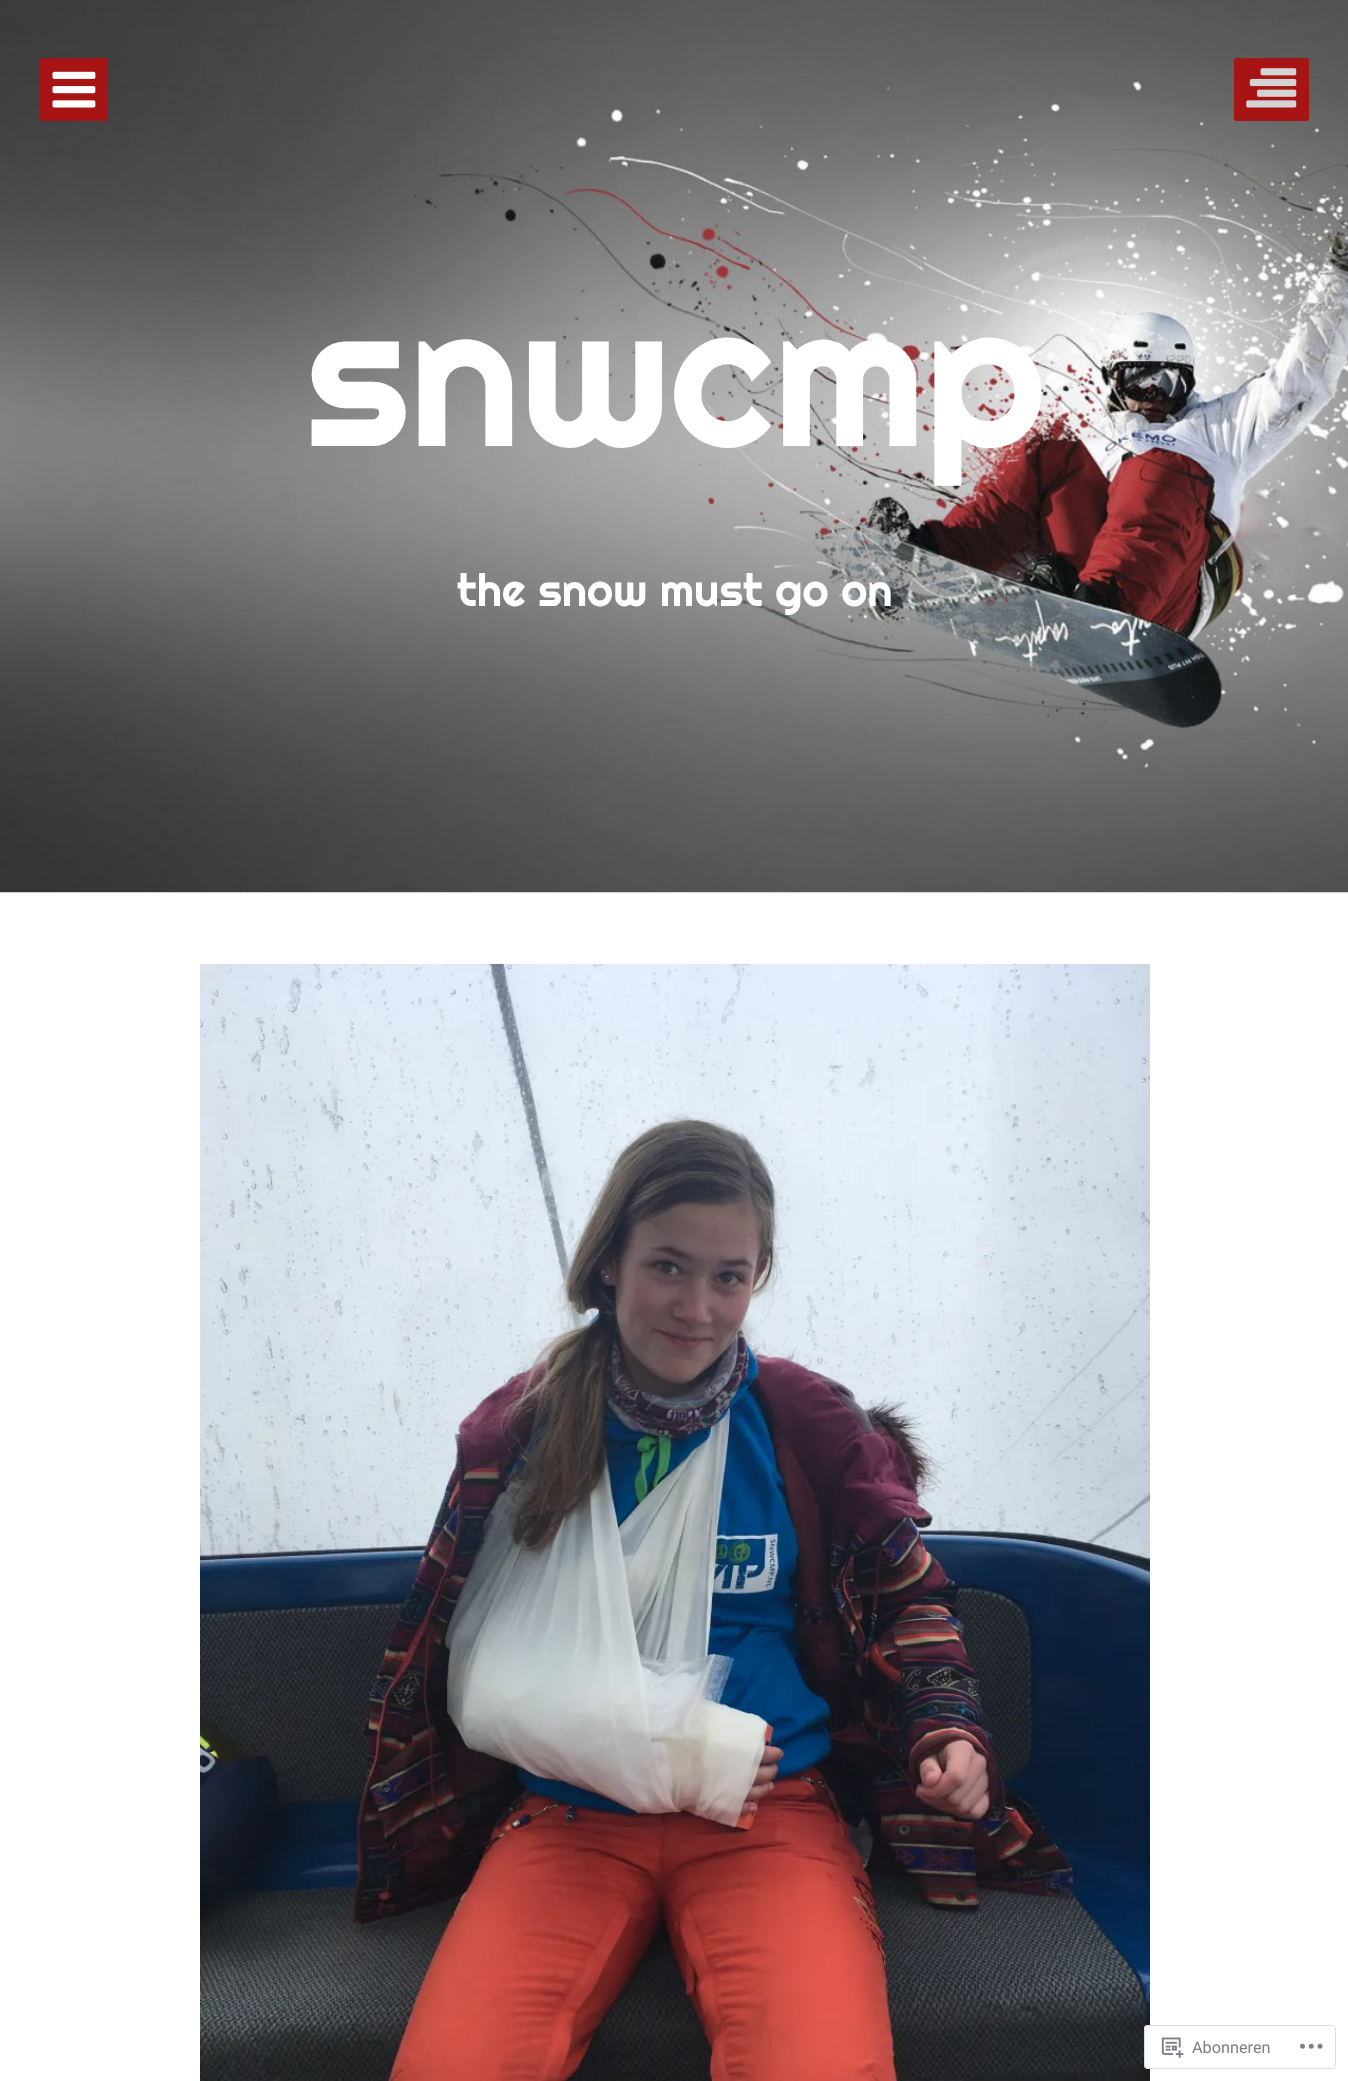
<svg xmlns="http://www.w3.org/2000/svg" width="1348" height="2081">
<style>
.a{font:200px Righteous;letter-spacing:-1.25px;fill:#fff}
.b{font:45px Righteous;fill:#fff}
.c{font:16.25px Roboto;fill:#7b7f85}
</style>
<rect width="100%" height="100%" fill="#fff"/>
<image href="3.png" x="0" y="0" width="1348" height="893"/>
<rect fill="#a71414" x="40" y="58" width="68" height="63" rx="2.5"/>
<image href="1.png" x="52" y="71" width="44" height="37"/>
<rect fill="#a71414" x="1234" y="58" width="75" height="63" rx="2.5"/>
<image href="2.png" x="1246" y="68" width="51" height="40"/>
<image href="4.png" x="200" y="963" width="950" height="1118"/>
<rect fill="#fffffffa" x="1144" y="2025" width="192" height="44" rx="4"/>
<rect fill="none" stroke="#dcdcdefa" x="1144.5" y="2025.5" width="191" height="43" rx="3.5"/>
<image href="5.png" x="1161" y="2037" width="23" height="21"/>
<image href="6.png" x="1300" y="2043" width="23" height="6"/>
<text class="a" x="305" y="446">snwcmp</text>
<text class="b" x="457" y="606">the snow must go on</text>
<text class="c" x="1192" y="2053">Abonneren</text>
</svg>
